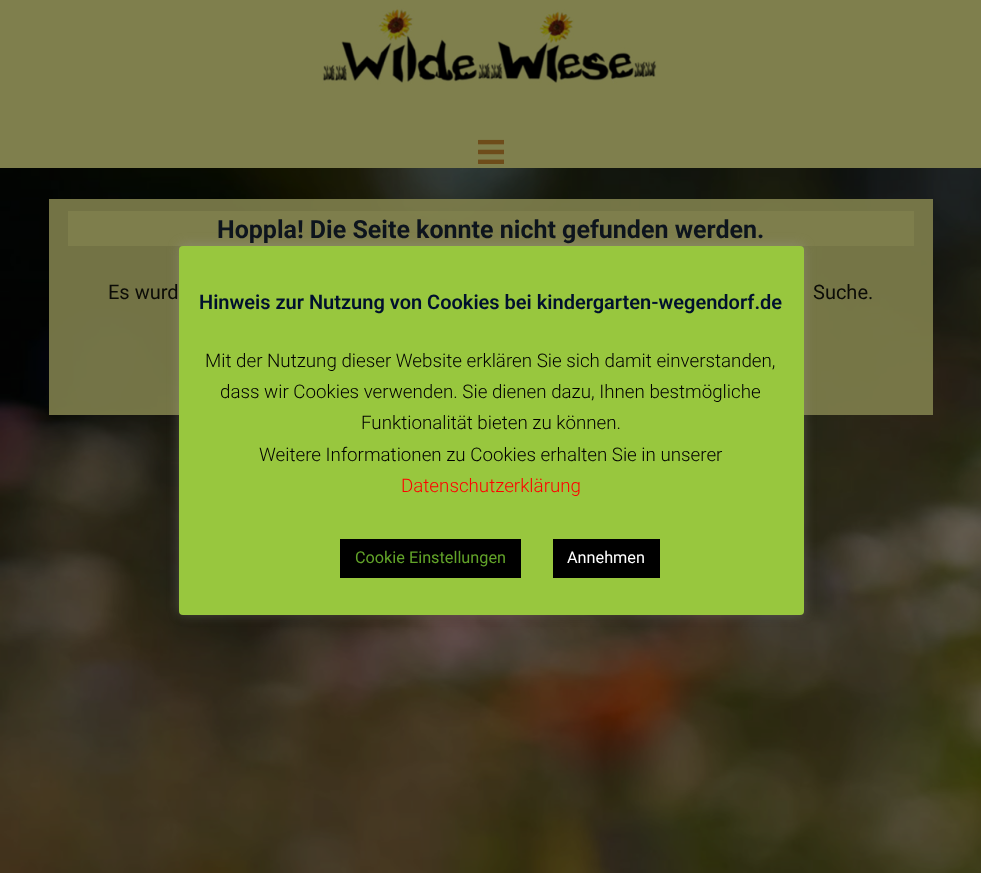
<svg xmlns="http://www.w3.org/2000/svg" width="981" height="873">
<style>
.a{font:bold 25px Roboto;fill:#0d141d}
.b{font:20px Roboto;fill:#0c0c07}
.c{font:600 20px Roboto;fill:#00102e}
.d{font:300 18.75px Roboto;fill:#000}
.e{font:300 18.75px Roboto;fill:#f00}
.f{font:16.25px Roboto;fill:#62a329}
.g{font:16.25px Roboto;fill:#fff}
</style>
<rect width="100%" height="100%" fill="#fff"/>
<image href="1.png" x="0" y="168" width="981" height="705"/>
<path fill="#7f7f4d" d="M0 0h981v168H0z"/>
<image href="2.png" x="322" y="6" width="335" height="79"/>
<image href="3.png" x="478" y="139" width="26" height="25"/>
<path fill="#7f804de6" d="M49 199h884v216H49z"/>
<path fill="#7f7f4de6" d="M68 211h846v35H68z"/>
<rect fill="#acabab4d" filter="blur(6px)" x="179" y="245" width="625" height="369" rx="4"/>
<rect fill="#98c73e" x="179" y="246" width="625" height="369" rx="4"/>
<path fill="#000" d="M340 539h181v39H340z"/>
<path fill="#000" d="M553 539h107v39H553z"/>
<text class="a" x="217" y="238">Hoppla! Die Seite konnte nicht gefunden werden.</text>
<text class="b" x="108" y="299">Es wurd</text>
<text class="b" x="813" y="299">Suche.</text>
<text class="c" x="199" y="309">Hinweis zur Nutzung von Cookies bei kindergarten-wegendorf.de</text>
<text class="d" x="205" y="367">Mit der Nutzung dieser Website erklären Sie sich damit einverstanden,</text>
<text class="d" x="220" y="398">dass wir Cookies verwenden. Sie dienen dazu, Ihnen bestmögliche</text>
<text class="d" x="361" y="429">Funktionalität bieten zu können.</text>
<text class="d" x="259" y="461">Weitere Informationen zu Cookies erhalten Sie in unserer</text>
<text class="e" x="401" y="492">Datenschutzerklärung</text>
<text class="f" x="355" y="563">Cookie Einstellungen</text>
<text class="g" x="567" y="563">Annehmen</text>
</svg>
